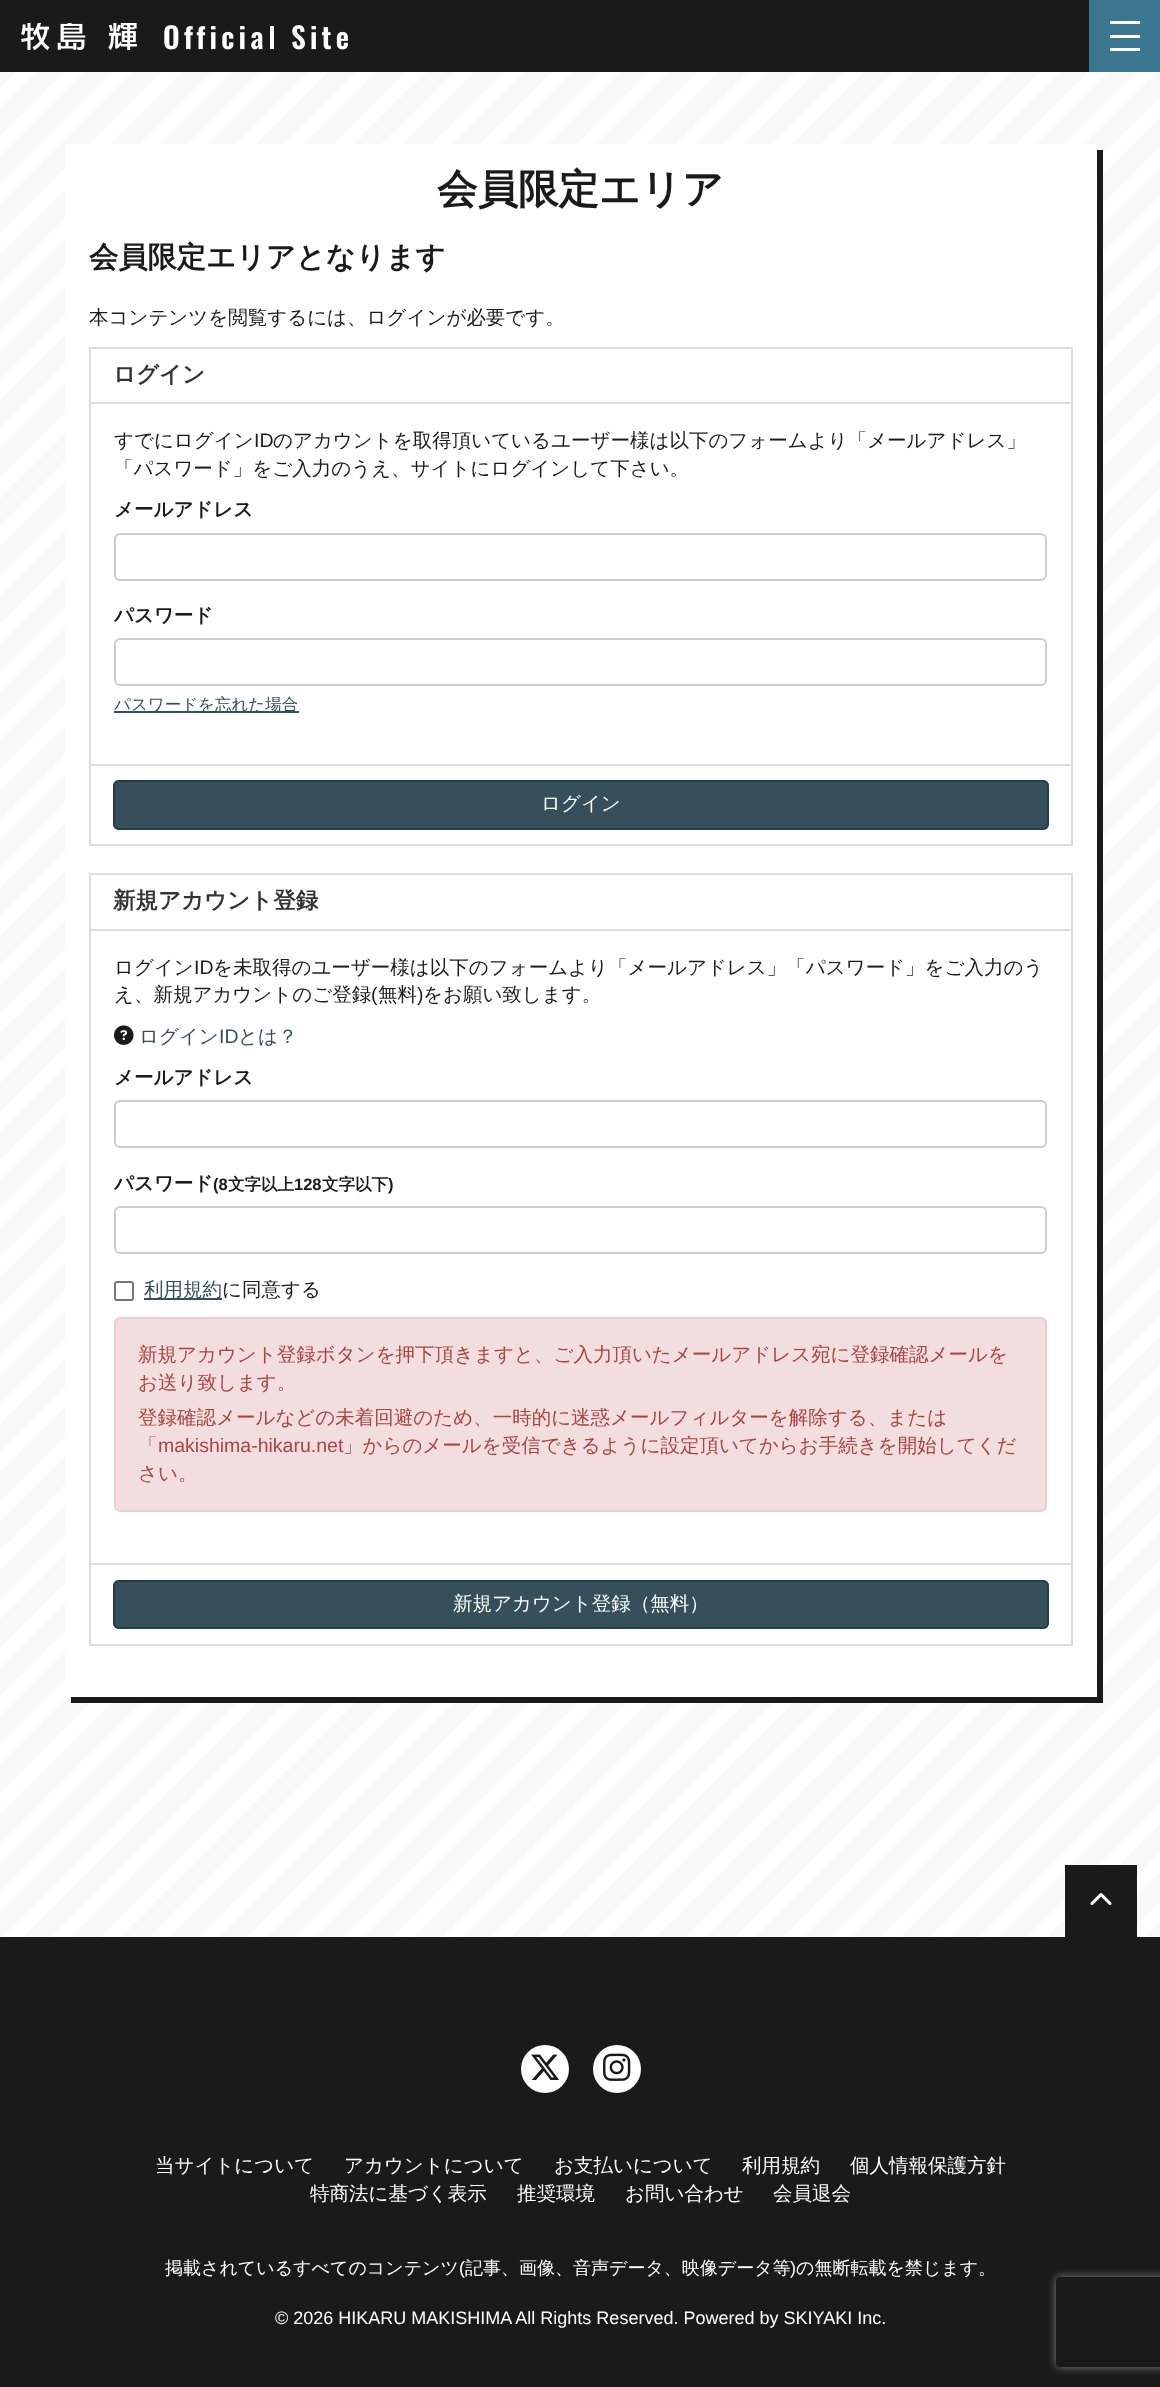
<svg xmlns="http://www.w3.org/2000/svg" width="1160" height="2387">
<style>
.a{font:bold 40.5px WenQuanYi Zen Hei;fill:#1a1a1a}
.b{font:bold 29.25px WenQuanYi Zen Hei;fill:#1a1a1a}
.c{font:500 19.5px WenQuanYi Zen Hei;fill:#1a1a1a}
.d{font:bold 22.5px WenQuanYi Zen Hei;fill:#333}
.e{font:19.5px Liberation Sans;fill:#1a1a1a}
.f{font:bold 19.5px WenQuanYi Zen Hei;fill:#1a1a1a}
.g{font:500 16.5px WenQuanYi Zen Hei;fill:#334e5a}
.h{font:500 19.5px WenQuanYi Zen Hei;fill:#fff}
.i{font:500 19.5px WenQuanYi Zen Hei;fill:#334e5a}
.j{font:19.5px Liberation Sans;fill:#334e5a}
.k{font:bold 16.5px Liberation Sans;fill:#1a1a1a}
.l{font:bold 16.5px WenQuanYi Zen Hei;fill:#1a1a1a}
.m{font:500 19.5px WenQuanYi Zen Hei;fill:#a94442}
.n{font:19.5px Liberation Sans;fill:#a94442}
.o{font:500 18px WenQuanYi Zen Hei;fill:#fff}
.p{font:18px Liberation Sans;fill:#fff}
</style>
<defs>
<clipPath id="clip1"><path d="M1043 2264h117v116h-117zm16 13h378c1.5 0 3 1.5 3 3v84c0 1.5-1.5 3-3 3h-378c-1.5 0-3-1.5-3-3v-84c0-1.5 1.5-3 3-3z" clip-rule="evenodd"/></clipPath>
</defs>
<rect width="100%" height="100%" fill="#fff"/>
<image href="1.png" x="0" y="72" width="1160" height="1865"/>
<path fill="#1a1a1a" d="M0 0h1089v72H0z"/>
<image href="2.png" x="21" y="23" width="327" height="27"/>
<path fill="#3b7791" d="M1089 0h71v72H1089z"/>
<path fill="#fff" d="M1110 21h30v3H1110z"/>
<path fill="#fff" d="M1110 35h30v3H1110z"/>
<path fill="#fff" d="M1110 48h30v3H1110z"/>
<path fill="#fff" d="M65 144h1032v1553H65z"/>
<path fill="#1a1a1a" d="M1097 150h6v1553H1097z"/>
<path fill="none" stroke="#ddd" stroke-width="2" d="M90 348h982v497H90z"/>
<path fill="#ddd" d="M90 402h981v2H90z"/>
<rect fill="none" stroke="#ccc" stroke-width="2" x="115" y="534" width="931" height="46" rx="5"/>
<rect fill="none" stroke="#ccc" stroke-width="2" x="115" y="639" width="931" height="46" rx="5"/>
<path fill="#35505b" d="M114 711h185v2H114z"/>
<path fill="#ddd" d="M90 764h981v2H90z"/>
<rect fill="#35505b" x="113" y="780" width="936" height="50" rx="6"/>
<rect fill="none" stroke="#1e3c49e6" stroke-width="2" x="114" y="781" width="934" height="48" rx="5"/>
<path fill="none" stroke="#ddd" stroke-width="2" d="M90 874h982v771H90z"/>
<path fill="#ddd" d="M90 929h981v2H90z"/>
<image href="3.png" x="114" y="1025" width="20" height="20"/>
<rect fill="none" stroke="#ccc" stroke-width="2" x="115" y="1101" width="931" height="46" rx="5"/>
<rect fill="none" stroke="#ccc" stroke-width="2" x="115" y="1207" width="931" height="46" rx="5"/>
<rect fill="none" stroke="#767676" stroke-width="2" x="115" y="1282" width="18" height="18" rx="2"/>
<path fill="#35505b" d="M144 1298h78v2H144z"/>
<rect fill="#f2dede" stroke="#ebccd1" stroke-width="2" x="115" y="1318" width="931" height="193" rx="5"/>
<path fill="#ddd" d="M90 1563h981v2H90z"/>
<rect fill="#35505b" x="113" y="1580" width="936" height="49" rx="6"/>
<rect fill="none" stroke="#1e3c49e6" stroke-width="2" x="114" y="1581" width="934" height="47" rx="5"/>
<path fill="#1a1a1a" d="M0 1937h1160v450H0z"/>
<g clip-path="url(#clip1)">
<rect fill="#808080" filter="blur(4px)" x="1056" y="2277" width="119" height="90" rx="3"/>
</g>
<path fill="#1a1a1a" d="M71 1697h1032v6H71z"/>
<path fill="#1a1a1a" d="M1065 1865h72v72H1065z"/>
<image href="4.png" x="1090" y="1893" width="22" height="12"/>
<circle fill="#fff" cx="545" cy="2069" r="24"/>
<image href="5.png" x="531" y="2054" width="29" height="26"/>
<circle fill="#fff" cx="617" cy="2069" r="24"/>
<image href="6.png" x="603" y="2053" width="28" height="28"/>
<text class="a" x="437" y="203">会員限定エリア</text>
<text class="b" x="89" y="267">会員限定エリアとなります</text>
<text class="c" x="89" y="324">本コンテンツを閲覧するには、ログインが必要です。</text>
<text class="d" x="113" y="382">ログイン</text>
<text class="c" x="114" y="447">すでにログイン</text>
<text class="e" x="254" y="447">ID</text>
<text class="c" x="273" y="447">のアカウントを取得頂いているユーザー様は以下のフォームより「メールアドレス」</text>
<text class="c" x="114" y="475">「パスワード」をご入力のうえ、サイトにログインして下さい。</text>
<text class="f" x="114" y="516">メールアドレス</text>
<text class="f" x="114" y="622">パスワード</text>
<text class="g" x="114" y="710">パスワードを忘れた場合</text>
<text class="h" x="541" y="810">ログイン</text>
<text class="d" x="113" y="908">新規アカウント登録</text>
<text class="c" x="114" y="974">ログイン</text>
<text class="e" x="194" y="974">ID</text>
<text class="c" x="213" y="974">を未取得のユーザー様は以下のフォームより「メールアドレス」「パスワード」をご入力のう</text>
<text class="c" x="114" y="1001">え、新規アカウントのご登録</text>
<text class="e" x="371" y="1001">(</text>
<text class="c" x="378" y="1001">無料</text>
<text class="e" x="417" y="1001">)</text>
<text class="c" x="423" y="1001">をお願い致します。</text>
<text class="i" x="139" y="1043">ログイン</text>
<text class="j" x="219" y="1043">ID</text>
<text class="i" x="238" y="1043">とは？</text>
<text class="f" x="114" y="1084">メールアドレス</text>
<text class="f" x="114" y="1190">パスワード</text>
<text class="k" x="213" y="1190">(8</text>
<text class="l" x="228" y="1190">文字以上</text>
<text class="k" x="294" y="1190">128</text>
<text class="l" x="322" y="1190">文字以下</text>
<text class="k" x="388" y="1190">)</text>
<text class="i" x="144" y="1296">利用規約</text>
<text class="c" x="222" y="1296">に同意する</text>
<text class="m" x="138" y="1361">新規アカウント登録ボタンを押下頂きますと、ご入力頂いたメールアドレス宛に登録確認メールを</text>
<text class="m" x="138" y="1389">お送り致します。</text>
<text class="m" x="138" y="1424">登録確認メールなどの未着回避のため、一時的に迷惑メールフィルターを解除する、または</text>
<text class="m" x="138" y="1452">「</text>
<text class="n" x="158" y="1452">makishima-hikaru.net</text>
<text class="m" x="343" y="1452">」からのメールを受信できるように設定頂いてからお手続きを開始してくだ</text>
<text class="m" x="138" y="1480">さい。</text>
<text class="h" x="453" y="1610">新規アカウント登録（無料）</text>
<text class="h" x="155" y="2172">当サイトについて</text>
<text class="h" x="344" y="2172">アカウントについて</text>
<text class="h" x="554" y="2172">お支払いについて</text>
<text class="h" x="742" y="2172">利用規約</text>
<text class="h" x="850" y="2172">個人情報保護方針</text>
<text class="h" x="310" y="2200">特商法に基づく表示</text>
<text class="h" x="517" y="2200">推奨環境</text>
<text class="h" x="625" y="2200">お問い合わせ</text>
<text class="h" x="773" y="2200">会員退会</text>
<text class="o" x="165" y="2274">掲載されているすべてのコンテンツ</text>
<text class="p" x="459" y="2274">(</text>
<text class="o" x="465" y="2274">記事、画像、音声データ、映像データ等</text>
<text class="p" x="790" y="2274">)</text>
<text class="o" x="796" y="2274">の無断転載を禁じます。</text>
<text class="p" x="275" y="2324">© 2026 HIKARU MAKISHIMA All Rights Reserved. Powered by SKIYAKI Inc.</text>
</svg>
